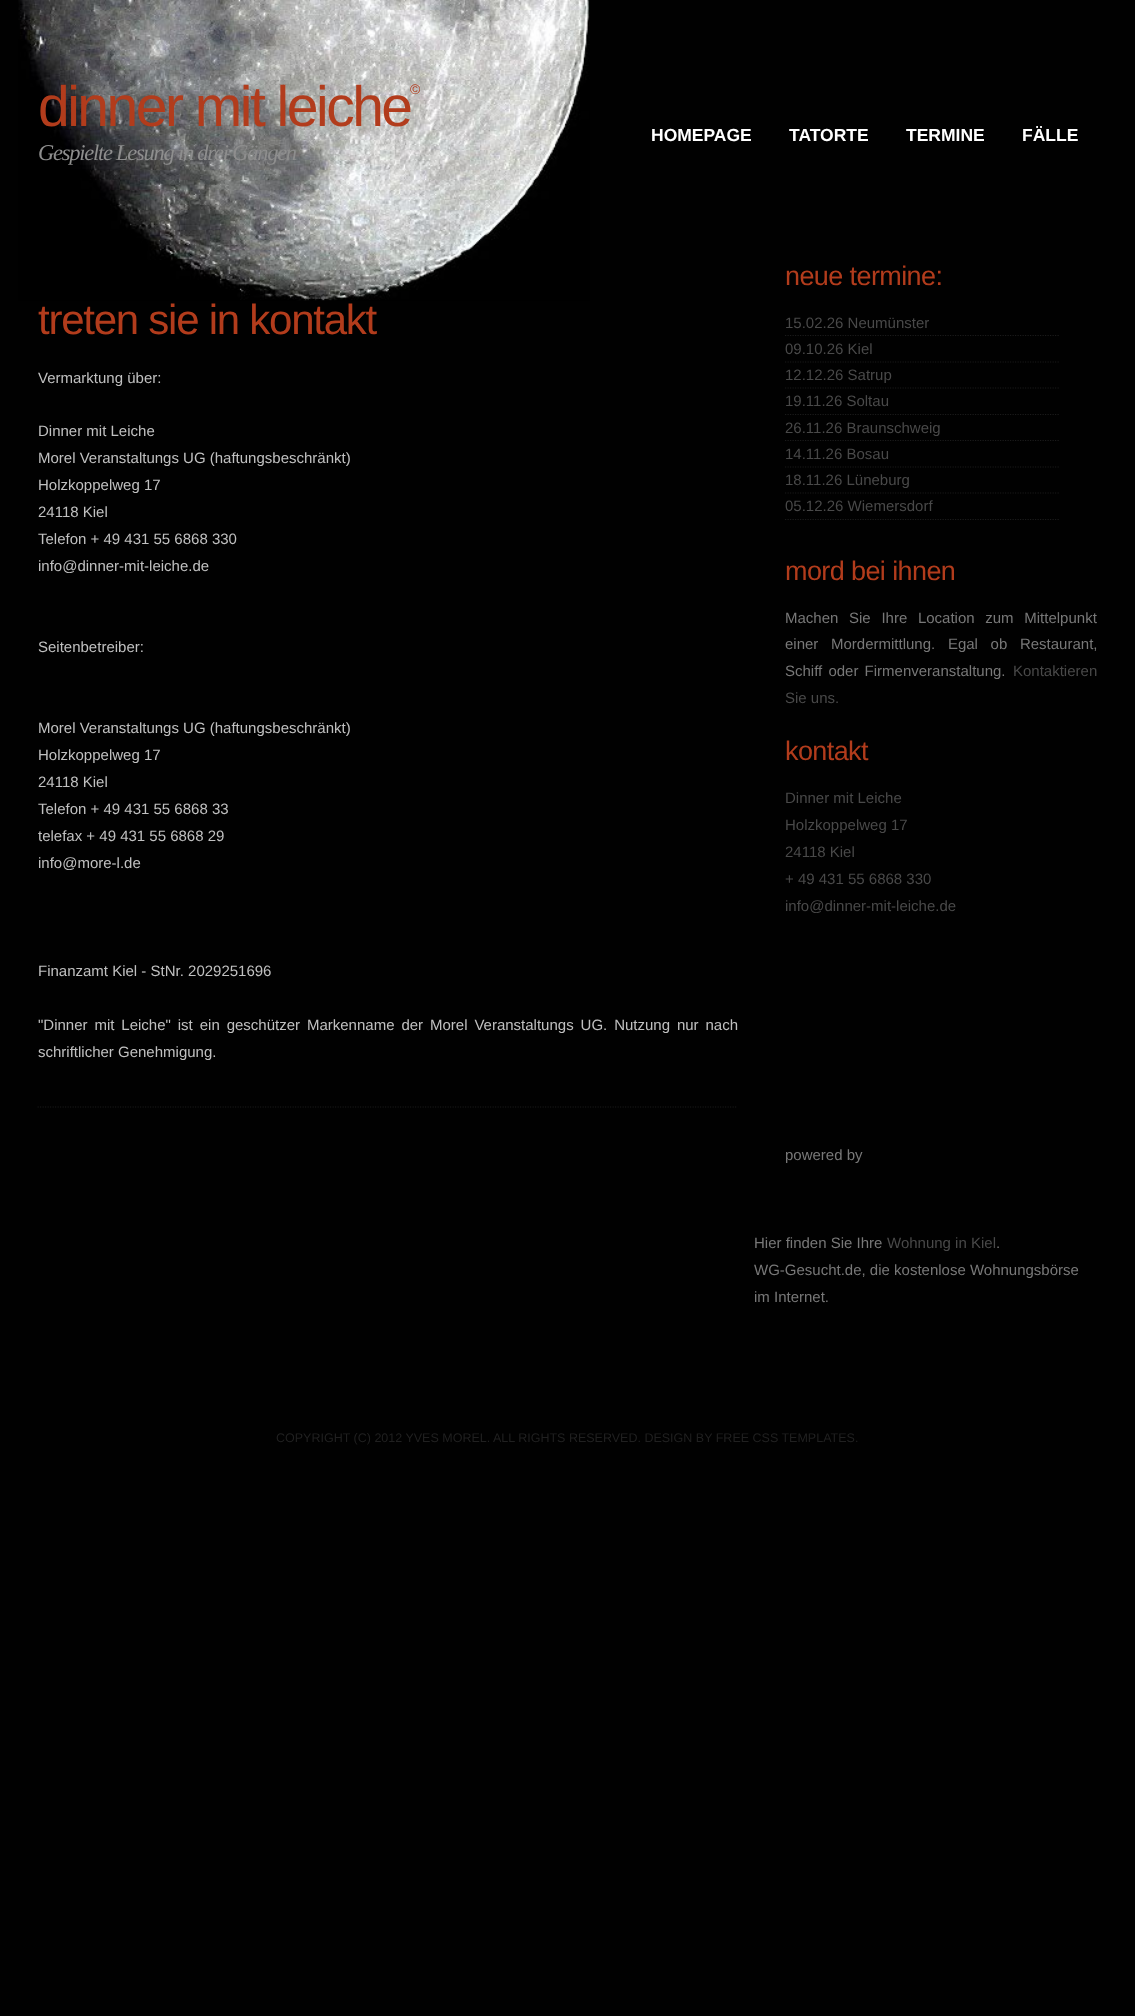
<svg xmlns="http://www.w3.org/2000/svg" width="1135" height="2016">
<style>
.a{font:57px Liberation Sans;letter-spacing:-2.5px;fill:#b23c1c}
.b{font:14px Liberation Sans;letter-spacing:-2.5px;fill:#b23c1c}
.c{font:italic 22.5px Liberation Serif;letter-spacing:-1.25px;fill:#8e8e8e}
.d{font:bold 17.5px Liberation Sans;fill:#fff}
.e{font:42px Liberation Sans;letter-spacing:-1.25px;fill:#b23c1c}
.f{font:15px Liberation Sans;fill:#c0c0c0}
.g{font:27px Liberation Sans;letter-spacing:-0.6px;fill:#b23c1c}
.h{font:15px Liberation Sans;fill:#494949}
.i{font:15px Liberation Sans;fill:#787878}
.j{font:12.5px Liberation Sans;fill:#202020}
</style>
<rect width="100%" height="100%" fill="#010101"/>
<image href="1.png" x="18" y="0" width="572" height="301"/>
<path fill="none" stroke="#1b1b1b" stroke-width="1.2" stroke-dasharray="1.25 1.25" d="M37.5 1107h700"/>
<path fill="none" stroke="#1b1b1b" stroke-width="1.2" stroke-dasharray="1.25 1.25" d="M785 335.5h275"/>
<path fill="none" stroke="#1b1b1b" stroke-width="1.2" stroke-dasharray="1.25 1.25" d="M785 362h275"/>
<path fill="none" stroke="#1b1b1b" stroke-width="1.2" stroke-dasharray="1.25 1.25" d="M785 388h275"/>
<path fill="none" stroke="#1b1b1b" stroke-width="1.2" stroke-dasharray="1.25 1.25" d="M785 414.5h275"/>
<path fill="none" stroke="#1b1b1b" stroke-width="1.2" stroke-dasharray="1.25 1.25" d="M785 440.5h275"/>
<path fill="none" stroke="#1b1b1b" stroke-width="1.2" stroke-dasharray="1.25 1.25" d="M785 467h275"/>
<path fill="none" stroke="#1b1b1b" stroke-width="1.2" stroke-dasharray="1.25 1.25" d="M785 493h275"/>
<path fill="none" stroke="#1b1b1b" stroke-width="1.2" stroke-dasharray="1.25 1.25" d="M785 519.5h275"/>
<text class="a" x="38" y="126">dinner mit leiche</text>
<text class="b" x="410" y="94">©</text>
<text class="c" x="38" y="160">Gespielte Lesung in drei Gängen</text>
<text class="d" x="651" y="141">HOMEPAGE</text>
<text class="d" x="789" y="141">TATORTE</text>
<text class="d" x="906" y="141">TERMINE</text>
<text class="d" x="1022" y="141">FÄLLE</text>
<text class="e" x="38" y="334">treten sie in kontakt</text>
<text class="f" x="38" y="383">Vermarktung über:</text>
<text class="f" x="38" y="436">Dinner mit Leiche</text>
<text class="f" x="38" y="463">Morel Veranstaltungs UG (haftungsbeschränkt)</text>
<text class="f" x="38" y="490">Holzkoppelweg 17</text>
<text class="f" x="38" y="517">24118 Kiel</text>
<text class="f" x="38" y="544">Telefon + 49 431 55 6868 330</text>
<text class="f" x="38" y="571">info@dinner-mit-leiche.de</text>
<text class="f" x="38" y="652">Seitenbetreiber:</text>
<text class="f" x="38" y="733">Morel Veranstaltungs UG (haftungsbeschränkt)</text>
<text class="f" x="38" y="760">Holzkoppelweg 17</text>
<text class="f" x="38" y="787">24118 Kiel</text>
<text class="f" x="38" y="814">Telefon + 49 431 55 6868 33</text>
<text class="f" x="38" y="841">telefax + 49 431 55 6868 29</text>
<text class="f" x="38" y="868">info@more-l.de</text>
<text class="f" x="38" y="976">Finanzamt Kiel - StNr. 2029251696</text>
<text class="f" x="38" y="1030" word-spacing="2.75">"Dinner mit Leiche" ist ein geschützer Markenname der Morel Veranstaltungs UG. Nutzung nur nach</text>
<text class="f" x="38" y="1057">schriftlicher Genehmigung.</text>
<text class="g" x="785" y="285">neue termine:</text>
<text class="h" x="785" y="328">15.02.26 Neumünster</text>
<text class="h" x="785" y="354">09.10.26 Kiel</text>
<text class="h" x="785" y="380">12.12.26 Satrup</text>
<text class="h" x="785" y="406">19.11.26 Soltau</text>
<text class="h" x="785" y="433">26.11.26 Braunschweig</text>
<text class="h" x="785" y="459">14.11.26 Bosau</text>
<text class="h" x="785" y="485">18.11.26 Lüneburg</text>
<text class="h" x="785" y="511">05.12.26 Wiemersdorf</text>
<text class="g" x="785" y="580">mord bei ihnen</text>
<text class="i" x="785" y="623" word-spacing="6.5">Machen Sie Ihre Location zum Mittelpunkt</text>
<text class="i" x="785" y="649" word-spacing="8.5">einer Mordermittlung. Egal ob Restaurant,</text>
<text class="i" x="785" y="676" word-spacing="2">Schiff oder Firmenveranstaltung.</text>
<text class="h" x="1013" y="676">Kontaktieren</text>
<text class="h" x="785" y="703">Sie uns.</text>
<text class="g" x="785" y="760">kontakt</text>
<text class="h" x="785" y="803">Dinner mit Leiche</text>
<text class="h" x="785" y="830">Holzkoppelweg 17</text>
<text class="h" x="785" y="857">24118 Kiel</text>
<text class="h" x="785" y="884">+ 49 431 55 6868 330</text>
<text class="h" x="785" y="911">info@dinner-mit-leiche.de</text>
<text class="i" x="785" y="1160">powered by</text>
<text class="i" x="754" y="1248">Hier finden Sie Ihre</text>
<text class="h" x="887" y="1248">Wohnung in Kiel</text>
<text class="i" x="996" y="1248">.</text>
<text class="i" x="754" y="1275">WG-Gesucht.de, die kostenlose Wohnungsbörse</text>
<text class="i" x="754" y="1302">im Internet.</text>
<text class="j" x="276" y="1442">COPYRIGHT (C) 2012 YVES MOREL. ALL RIGHTS RESERVED. DESIGN BY FREE CSS TEMPLATES.</text>
</svg>
